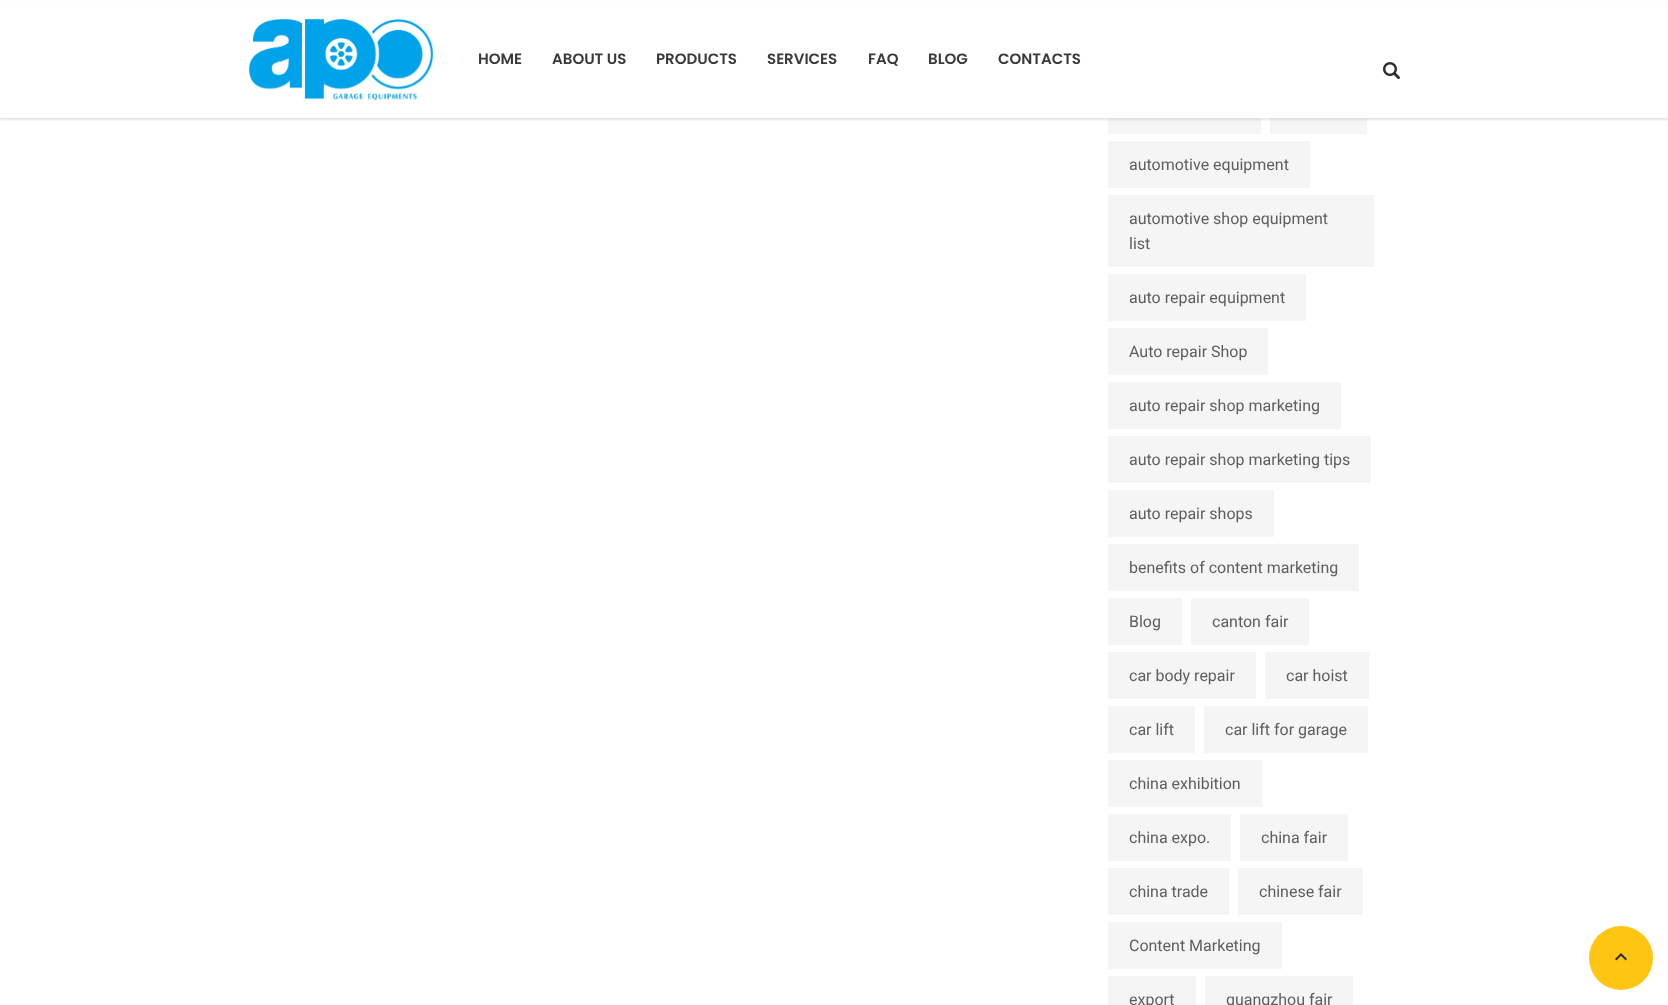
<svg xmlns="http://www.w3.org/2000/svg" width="1668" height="1005">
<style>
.a{font:600 15px Poppins;fill:#3a3a3a}
.b{font:16px Roboto;fill:#5e5e5e}
</style>
<rect width="100%" height="100%" fill="#fff"/>
<path fill="#f5f5f5" d="M1108 118h153v16H1108z"/>
<path fill="#f5f5f5" d="M1270 118h97v16H1270z"/>
<path fill="#0000001a" filter="blur(1px)" d="M0 2h1668v118H0z"/>
<path fill="#fff" d="M0 1h1668v117H0z"/>
<image href="1.png" x="249" y="19" width="184" height="82"/>
<image href="2.png" x="1383" y="62" width="17" height="17"/>
<path fill="#f5f5f5" d="M1108 141h202v47H1108z"/>
<path fill="#f5f5f5" d="M1108 195h266v72H1108z"/>
<path fill="#f5f5f5" d="M1108 274h198v47H1108z"/>
<path fill="#f5f5f5" d="M1108 328h160v47H1108z"/>
<path fill="#f5f5f5" d="M1108 382h233v47H1108z"/>
<path fill="#f5f5f5" d="M1108 436h263v47H1108z"/>
<path fill="#f5f5f5" d="M1108 490h166v47H1108z"/>
<path fill="#f5f5f5" d="M1108 544h251v47H1108z"/>
<path fill="#f5f5f5" d="M1108 598h74v47H1108z"/>
<path fill="#f5f5f5" d="M1191 598h118v47H1191z"/>
<path fill="#f5f5f5" d="M1108 652h148v47H1108z"/>
<path fill="#f5f5f5" d="M1265 652h104v47H1265z"/>
<path fill="#f5f5f5" d="M1108 706h87v47H1108z"/>
<path fill="#f5f5f5" d="M1204 706h164v47H1204z"/>
<path fill="#f5f5f5" d="M1108 760h154v47H1108z"/>
<path fill="#f5f5f5" d="M1108 814h123v47H1108z"/>
<path fill="#f5f5f5" d="M1240 814h108v47H1240z"/>
<path fill="#f5f5f5" d="M1108 868h121v47H1108z"/>
<path fill="#f5f5f5" d="M1238 868h125v47H1238z"/>
<path fill="#f5f5f5" d="M1108 922h174v47H1108z"/>
<path fill="#f5f5f5" d="M1108 976h88v29H1108z"/>
<path fill="#f5f5f5" d="M1205 976h148v29H1205z"/>
<circle fill="#ffc513" cx="1621" cy="958" r="32"/>
<image href="3.png" x="1615" y="953" width="12" height="8"/>
<text class="a" x="478" y="64">HOME</text>
<text class="a" x="552" y="64">ABOUT US</text>
<text class="a" x="656" y="64">PRODUCTS</text>
<text class="a" x="767" y="64">SERVICES</text>
<text class="a" x="868" y="64">FAQ</text>
<text class="a" x="928" y="64">BLOG</text>
<text class="a" x="998" y="64">CONTACTS</text>
<text class="b" x="1129" y="170">automotive equipment</text>
<text class="b" x="1129" y="224">automotive shop equipment</text>
<text class="b" x="1129" y="249">list</text>
<text class="b" x="1129" y="303">auto repair equipment</text>
<text class="b" x="1129" y="357">Auto repair Shop</text>
<text class="b" x="1129" y="411">auto repair shop marketing</text>
<text class="b" x="1129" y="465">auto repair shop marketing tips</text>
<text class="b" x="1129" y="519">auto repair shops</text>
<text class="b" x="1129" y="573">benefits of content marketing</text>
<text class="b" x="1129" y="627">Blog</text>
<text class="b" x="1212" y="627">canton fair</text>
<text class="b" x="1129" y="681">car body repair</text>
<text class="b" x="1286" y="681">car hoist</text>
<text class="b" x="1129" y="735">car lift</text>
<text class="b" x="1225" y="735">car lift for garage</text>
<text class="b" x="1129" y="789">china exhibition</text>
<text class="b" x="1129" y="843">china expo.</text>
<text class="b" x="1261" y="843">china fair</text>
<text class="b" x="1129" y="897">china trade</text>
<text class="b" x="1259" y="897">chinese fair</text>
<text class="b" x="1129" y="951">Content Marketing</text>
<text class="b" x="1129" y="1005">export</text>
<text class="b" x="1226" y="1005">guangzhou fair</text>
</svg>
